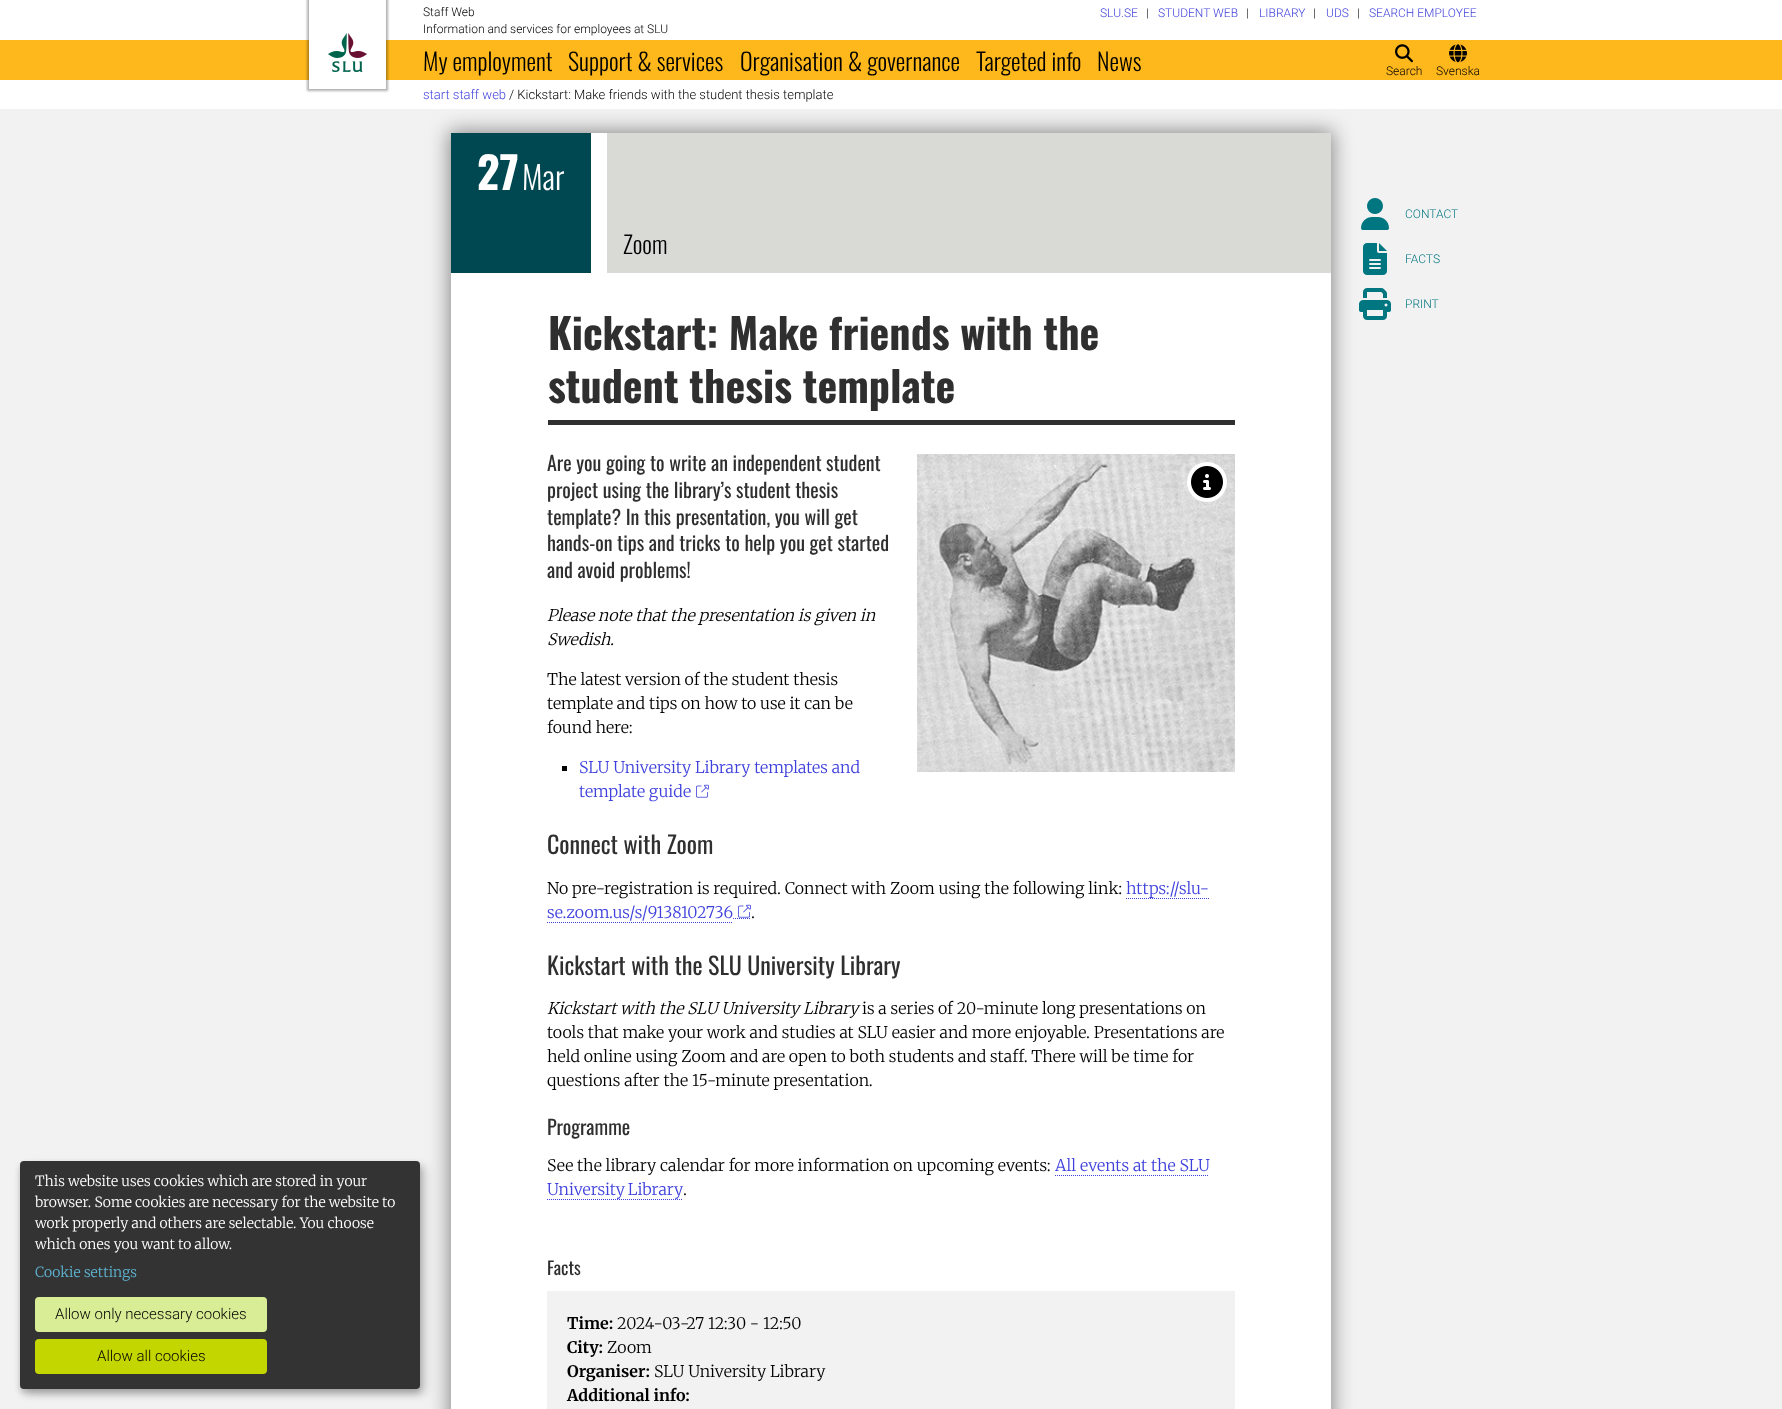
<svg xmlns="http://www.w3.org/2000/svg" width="1782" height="1409">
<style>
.a{font:300 12px Roboto;fill:#000}
.b{font:300 12px Roboto;fill:#3f41dc}
.c{font:300 24px Oswald;fill:#000}
.d{font:300 13px Roboto;fill:#3f41dc}
.e{font:300 13px Roboto;fill:#000}
.f{font:300 14px Merriweather;fill:#fff}
.g{font:300 14px Merriweather;fill:#5eb5d3}
.h{font:300 15px Roboto;fill:#000}
.i{font:bold 44px Oswald;fill:#fff}
.j{font:300 32px Oswald;fill:#fff}
.k{font:bold 42px Oswald;fill:#302f2f}
.l{font:20px Oswald;fill:#302f2f}
.m{font:italic 300 16px Merriweather;fill:#000}
.n{font:300 16px Merriweather;fill:#000}
.o{font:300 16px Merriweather;fill:#3f41dc}
.p{font:24px Oswald;fill:#302f2f}
.q{font:18px Oswald;fill:#302f2f}
.r{font:bold 16px Merriweather;fill:#000}
.s{font:300 12px Roboto;fill:#007681}
</style>
<rect width="100%" height="100%" fill="#fff"/>
<path fill="#ffb81c" d="M0 40h1782v40H0z"/>
<path fill="#0000004d" filter="blur(1px)" d="M307 -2h81v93H307z"/>
<path fill="#fff" d="M309 0h77v89H309z"/>
<image href="1.png" x="328" y="33" width="39" height="39"/>
<image href="2.png" x="1395" y="44" width="18" height="19"/>
<image href="3.png" x="1449" y="44" width="18" height="19"/>
<path fill="#f2f2f2" d="M0 109h1782v1300H0z"/>
<rect fill="#00000030" filter="blur(5px)" x="25" y="1166" width="400" height="228" rx="4"/>
<rect fill="#00000033" filter="blur(3px)" x="20" y="1165" width="400" height="228" rx="4"/>
<path fill="#888" filter="blur(10px)" d="M449 131h884v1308H449z"/>
<rect fill="#333" x="20" y="1161" width="400" height="228" rx="4"/>
<rect fill="#d8ed96" x="35" y="1297" width="232" height="35" rx="4"/>
<rect fill="#c4d600" x="35" y="1339" width="232" height="35" rx="4"/>
<path fill="#fff" d="M451 133h880v1276H451z"/>
<path fill="#004851" d="M451 133h140v140H451z"/>
<path fill="#d9d9d6" d="M607 133h724v140H607z"/>
<path fill="#302f2f" d="M548 420h687v5H548z"/>
<image href="4.png" x="917" y="454" width="318" height="318"/>
<circle fill="#fff" cx="1207" cy="482" r="20"/>
<image href="5.png" x="1191" y="466" width="32" height="32"/>
<path fill="#000" d="M562 766h5v5H562z"/>
<image href="6.png" x="696" y="784" width="13" height="14"/>
<path fill="none" stroke="#3f41dc" stroke-dasharray="1 1" d="M1126 898.5h83"/>
<path fill="none" stroke="#3f41dc" stroke-dasharray="1 1" d="M547 922.5h186"/>
<path fill="none" stroke="#3f41dc" stroke-dasharray="1 1" d="M733 918.5h18"/>
<image href="6.png" x="738" y="904" width="13" height="14"/>
<path fill="none" stroke="#3f41dc" stroke-dasharray="1 1" d="M1055 1175.5h154"/>
<path fill="none" stroke="#3f41dc" stroke-dasharray="1 1" d="M547 1199.5h136"/>
<path fill="#f2f2f2" d="M547 1291h688v118H547z"/>
<image href="7.png" x="1361" y="198" width="28" height="32"/>
<image href="8.png" x="1363" y="243" width="24" height="32"/>
<image href="9.png" x="1359" y="288" width="32" height="32"/>
<text class="a" x="423" y="16">Staff Web</text>
<text class="a" x="423" y="33">Information and services for employees at SLU</text>
<text class="b" x="1100" y="17">SLU.SE</text>
<text class="a" x="1146" y="17">|</text>
<text class="b" x="1158" y="17">STUDENT WEB</text>
<text class="a" x="1246" y="17">|</text>
<text class="b" x="1259" y="17">LIBRARY</text>
<text class="a" x="1313" y="17">|</text>
<text class="b" x="1326" y="17">UDS</text>
<text class="a" x="1357" y="17">|</text>
<text class="b" x="1369" y="17">SEARCH EMPLOYEE</text>
<text class="c" x="423" y="71">My employment</text>
<text class="c" x="568" y="71">Support &amp; services</text>
<text class="c" x="740" y="71">Organisation &amp; governance</text>
<text class="c" x="976" y="71">Targeted info</text>
<text class="c" x="1097" y="71">News</text>
<text class="a" x="1386" y="75">Search</text>
<text class="a" x="1436" y="75">Svenska</text>
<text class="d" x="423" y="99">start staff web</text>
<text class="e" x="509" y="99">/ Kickstart: Make friends with the student thesis template</text>
<text class="f" x="35" y="1186">This website uses cookies which are stored in your</text>
<text class="f" x="35" y="1207">browser. Some cookies are necessary for the website to</text>
<text class="f" x="35" y="1228">work properly and others are selectable. You choose</text>
<text class="f" x="35" y="1249">which ones you want to allow.</text>
<text class="g" x="35" y="1277">Cookie settings</text>
<text class="h" x="55" y="1319">Allow only necessary cookies</text>
<text class="h" x="97" y="1361">Allow all cookies</text>
<text class="i" x="477" y="190">27</text>
<text class="j" x="522" y="190">Mar</text>
<text class="c" x="623" y="254">Zoom</text>
<text class="k" x="548" y="350">Kickstart: Make friends with the</text>
<text class="k" x="548" y="403">student thesis template</text>
<text class="l" x="547" y="471">Are you going to write an independent student</text>
<text class="l" x="547" y="498">project using the library’s student thesis</text>
<text class="l" x="547" y="525">template? In this presentation, you will get</text>
<text class="l" x="547" y="551">hands-on tips and tricks to help you get started</text>
<text class="l" x="547" y="578">and avoid problems!</text>
<text class="m" x="547" y="621">Please note that the presentation is given in</text>
<text class="m" x="547" y="645">Swedish.</text>
<text class="n" x="547" y="685">The latest version of the student thesis</text>
<text class="n" x="547" y="709">template and tips on how to use it can be</text>
<text class="n" x="547" y="733">found here:</text>
<text class="o" x="579" y="773">SLU University Library templates and</text>
<text class="o" x="579" y="797">template guide</text>
<text class="p" x="547" y="854">Connect with Zoom</text>
<text class="n" x="547" y="894">No pre-registration is required. Connect with Zoom using the following link:</text>
<text class="o" x="1126" y="894">https://slu-</text>
<text class="o" x="547" y="918">se.zoom.us/s/9138102736</text>
<text class="n" x="751" y="918">.</text>
<text class="p" x="547" y="975">Kickstart with the SLU University Library</text>
<text class="m" x="547" y="1014">Kickstart with the SLU University Library</text>
<text class="n" x="862" y="1014">is a series of 20-minute long presentations on</text>
<text class="n" x="547" y="1038">tools that make your work and studies at SLU easier and more enjoyable. Presentations are</text>
<text class="n" x="547" y="1062">held online using Zoom and are open to both students and staff. There will be time for</text>
<text class="n" x="547" y="1086">questions after the 15-minute presentation.</text>
<text class="l" x="547" y="1135">Programme</text>
<text class="n" x="547" y="1171">See the library calendar for more information on upcoming events:</text>
<text class="o" x="1055" y="1171">All events at the SLU</text>
<text class="o" x="547" y="1195" word-spacing="-1">University Library</text>
<text class="n" x="683" y="1195">.</text>
<text class="q" x="547" y="1275">Facts</text>
<text class="r" x="567" y="1329">Time:</text>
<text class="n" x="617" y="1329">2024-03-27 12:30 - 12:50</text>
<text class="r" x="567" y="1353">City:</text>
<text class="n" x="607" y="1353">Zoom</text>
<text class="r" x="567" y="1377">Organiser:</text>
<text class="n" x="654" y="1377">SLU University Library</text>
<text class="r" x="567" y="1401">Additional info:</text>
<text class="s" x="1405" y="218">CONTACT</text>
<text class="s" x="1405" y="263">FACTS</text>
<text class="s" x="1405" y="308">PRINT</text>
</svg>
